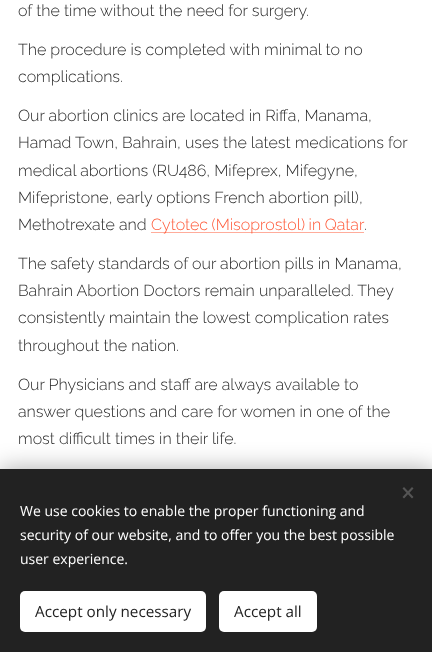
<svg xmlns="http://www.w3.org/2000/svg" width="432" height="652">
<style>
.a{font:300 16px Raleway;fill:#282828}
.b{font:300 16px Raleway;fill:#ff5837}
.c{font:14px Open Sans;fill:#fff}
.d{font:15.25px Open Sans;fill:#222}
</style>
<rect width="100%" height="100%" fill="#fff"/>
<path fill="#ffac9b" d="M151 232h213v1H151z"/>
<path fill="#00000054" filter="blur(12.5px)" d="M0 469h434v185H0z"/>
<path fill="#222" d="M0 469h432v183H0z"/>
<path fill="#555" d="M402.5 497l9.5-10l1.5 1.5l-9.5 10z"/>
<path fill="#555" d="M404 487l9.5 10l-1.5 1.5l-9.5-10z"/>
<rect fill="#fff" x="20" y="591" width="186" height="41" rx="5"/>
<rect fill="#fff" x="219" y="591" width="98" height="41" rx="5"/>
<text class="a" x="18" y="16">of the time without the need for surgery.</text>
<text class="a" x="18" y="55">The procedure is completed with minimal to no</text>
<text class="a" x="18" y="82">complications.</text>
<text class="a" x="18" y="121">Our abortion clinics are located in Riffa, Manama,</text>
<text class="a" x="18" y="148">Hamad Town, Bahrain, uses the latest medications for</text>
<text class="a" x="18" y="176">medical abortions (RU486, Mifeprex, Mifegyne,</text>
<text class="a" x="18" y="203">Mifepristone, early options French abortion pill),</text>
<text class="a" x="18" y="230">Methotrexate and</text>
<text class="b" x="151" y="230" word-spacing="-0.5">Cytotec (Misoprostol) in Qatar</text>
<text class="a" x="364" y="230">.</text>
<text class="a" x="18" y="269">The safety standards of our abortion pills in Manama,</text>
<text class="a" x="18" y="296">Bahrain Abortion Doctors remain unparalleled. They</text>
<text class="a" x="18" y="323">consistently maintain the lowest complication rates</text>
<text class="a" x="18" y="351">throughout the nation.</text>
<text class="a" x="18" y="390">Our Physicians and staff are always available to</text>
<text class="a" x="18" y="417">answer questions and care for women in one of the</text>
<text class="a" x="18" y="444">most difficult times in their life.</text>
<text class="c" x="20" y="516">We use cookies to enable the proper functioning and</text>
<text class="c" x="20" y="540">security of our website, and to offer you the best possible</text>
<text class="c" x="20" y="564">user experience.</text>
<text class="d" x="35" y="617">Accept only necessary</text>
<text class="d" x="234" y="617">Accept all</text>
</svg>
